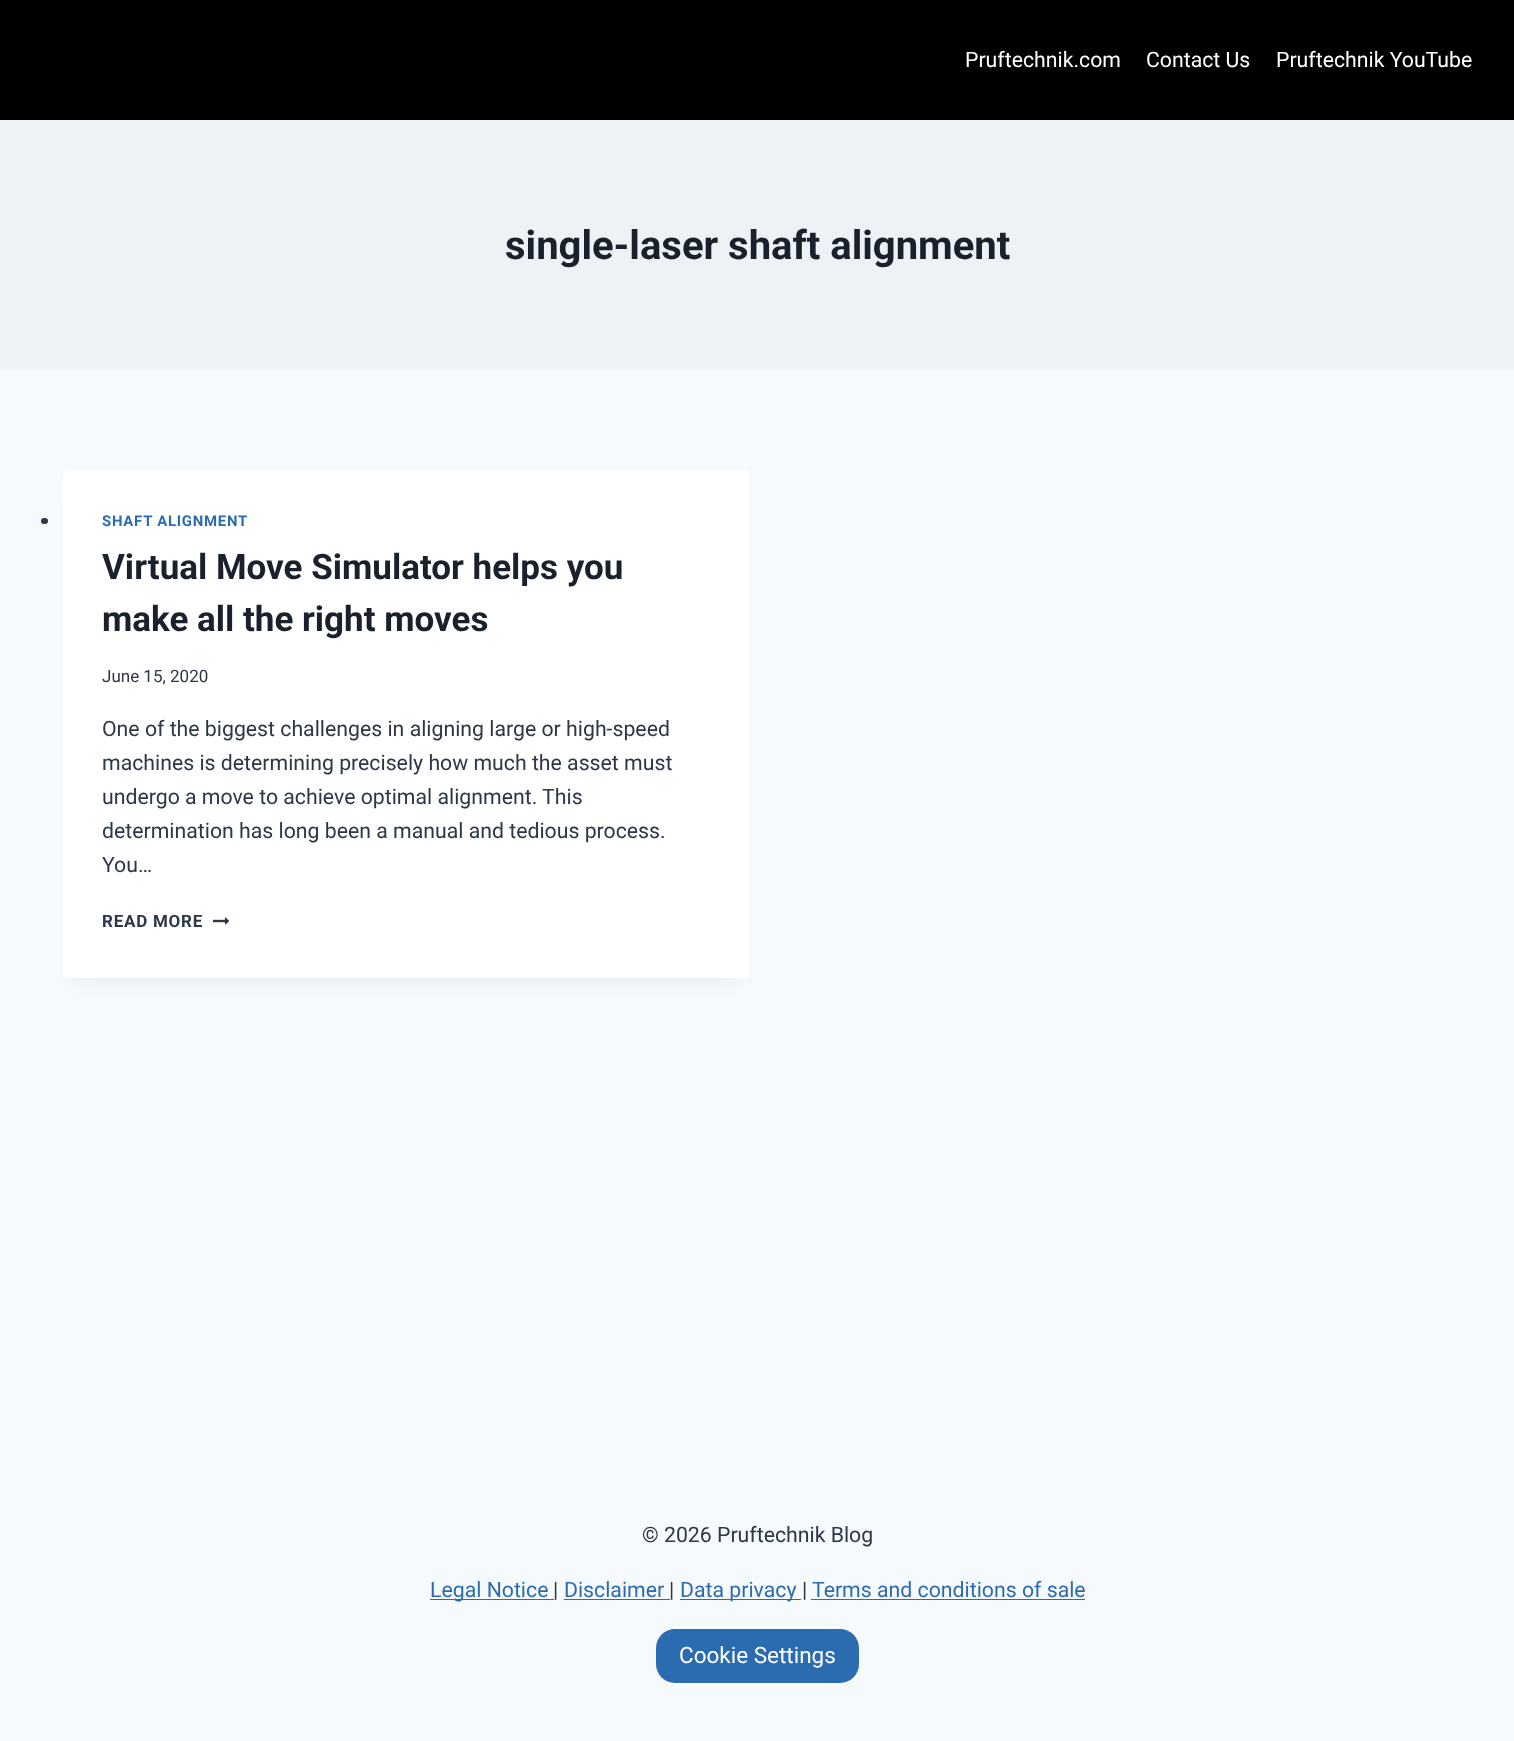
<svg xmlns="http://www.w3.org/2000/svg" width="1514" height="1741">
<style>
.a{font:21.25px Roboto;fill:#fff}
.b{font:bold 40px Roboto;fill:#1a202c}
.c{font:bold 14.9px Roboto;letter-spacing:0.75px;fill:#2b6cb0}
.d{font:bold 35px Roboto;fill:#1a202c}
.e{font:17px Roboto;fill:#2d3748}
.f{font:21.25px Roboto;fill:#2d3748}
.g{font:bold 17px Roboto;letter-spacing:0.75px;fill:#2d3748}
.h{font:21.25px Roboto;fill:#2b6cb0}
.i{font:22.5px Roboto;fill:#fff}
</style>
<rect width="100%" height="100%" fill="#f7fafc"/>
<path fill="#000" d="M0 0h1514v120H0z"/>
<path fill="#edf2f7" d="M0 120h1514v250H0z"/>
<path fill="#0000000d" filter="blur(9.5px)" d="M75 501h661v483H75z"/>
<rect fill="#2d3748" x="41" y="518" width="7" height="6" rx="3"/>
<rect fill="#fff" x="63" y="470" width="686" height="508" rx="5"/>
<image href="1.png" x="213" y="917" width="16" height="8"/>
<path fill="#2b6cb0" d="M430 1599h124v1H430z"/>
<path fill="#2b6cb0" d="M564 1599h106v1H564z"/>
<path fill="#2b6cb0" d="M680 1599h121v1H680z"/>
<path fill="#2b6cb0" d="M811 1599h274v1H811z"/>
<rect fill="#2b6cb0" x="656" y="1629" width="203" height="54" rx="19"/>
<text class="a" x="965" y="67">Pruftechnik.com</text>
<text class="a" x="1146" y="67">Contact Us</text>
<text class="a" x="1276" y="67">Pruftechnik YouTube</text>
<text class="b" x="505" y="259">single-laser shaft alignment</text>
<text class="c" x="102" y="526">SHAFT ALIGNMENT</text>
<text class="d" x="102" y="579">Virtual Move Simulator helps you</text>
<text class="d" x="102" y="631">make all the right moves</text>
<text class="e" x="102" y="682">June 15, 2020</text>
<text class="f" x="102" y="736">One of the biggest challenges in aligning large or high-speed</text>
<text class="f" x="102" y="770">machines is determining precisely how much the asset must</text>
<text class="f" x="102" y="804">undergo a move to achieve optimal alignment. This</text>
<text class="f" x="102" y="838">determination has long been a manual and tedious process.</text>
<text class="f" x="102" y="872">You…</text>
<text class="g" x="102" y="927">READ MORE</text>
<text class="f" x="642" y="1542">© 2026 Pruftechnik Blog</text>
<text class="h" x="430" y="1597">Legal Notice</text>
<text class="f" x="553" y="1597">|</text>
<text class="h" x="564" y="1597">Disclaimer</text>
<text class="f" x="669" y="1597">|</text>
<text class="h" x="680" y="1597">Data privacy</text>
<text class="f" x="802" y="1597">|</text>
<text class="h" x="812" y="1597">Terms and conditions of sale</text>
<text class="i" x="679" y="1663">Cookie Settings</text>
</svg>
